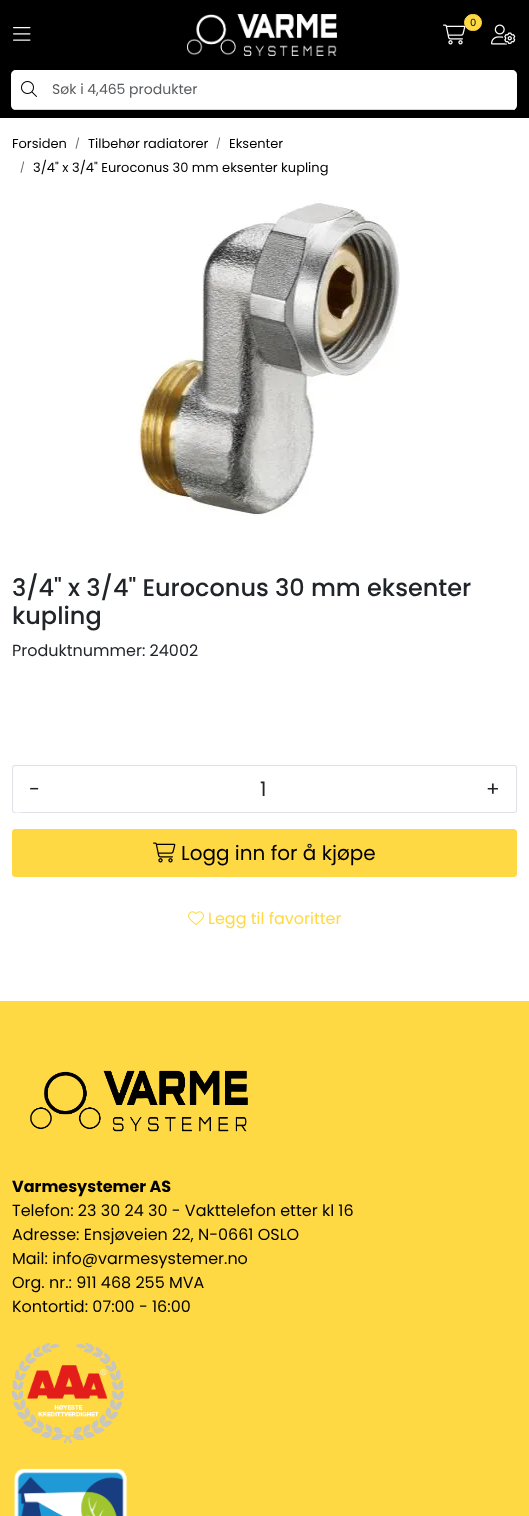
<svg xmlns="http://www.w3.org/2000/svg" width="529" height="1516">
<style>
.a{font:10px Poppins;fill:#000}
.b{font:14px Poppins;fill:#595c5f}
.c{font:13px Poppins;fill:#000}
.d{font:10px Poppins;fill:#595c5f}
.e{font:500 24px Poppins;fill:#212529}
.f{font:16px Poppins;fill:#212529}
.g{font:20px Poppins;fill:#212529}
.h{font:20px Poppins;fill:#000}
.i{font:16px Poppins;fill:#ffd944}
.j{font:bold 16px Poppins;fill:#000}
.k{font:16px Poppins;fill:#000}
</style>
<rect width="100%" height="100%" fill="#fff"/>
<path fill="#000" d="M0 0h529v118H0z"/>
<image href="1.png" x="187" y="14" width="150" height="42"/>
<image href="2.png" x="443" y="24" width="23" height="21"/>
<rect fill="#ffd944" stroke="#ffd944" x="464.5" y="14.5" width="17" height="16" rx="8"/>
<image href="3.png" x="491" y="24" width="25" height="21"/>
<image href="4.png" x="13" y="27" width="18" height="14"/>
<path fill="#fff" d="M16 70h26v40h-26c-3 0-5-2-5-5v-30c0-3 2-5 5-5z"/>
<path fill="#ffd944" d="M14 109h28v1H14z"/>
<image href="5.png" x="21" y="81" width="16" height="16"/>
<path fill="#fff" d="M42 70h470c3 0 5 2 5 5v30c0 3-2 5-5 5h-470z"/>
<path fill="#ffd944" d="M42 109h473v1H42z"/>
<image href="6.png" x="138" y="200" width="262" height="320"/>
<path fill="#dee2e6" d="M55 765h416v1H55z"/>
<path fill="#dee2e6" d="M55 812h416v1H55z"/>
<path fill="#fff" d="M15 765h41v48h-41c-1.5 0-3-1.5-3-3v-42c0-1.5 1.5-3 3-3z"/>
<path fill="#dee2e6" fill-rule="evenodd" d="M15 765h41v48h-41c-2 0-3-1-3-3v-42c0-2 1-3 3-3zm0 1h41v46h-34c0 0-9 2-9-2v-43z"/>
<path fill="#fff" d="M470 765h44c1.5 0 3 1.5 3 3v42c0 1.5-1.5 3-3 3h-44z"/>
<path fill="#dee2e6" fill-rule="evenodd" d="M470 765h44c2 0 3 1 3 3v42c0 2-1 3-3 3h-44zm0 1h44c1 0 2 1 2 2v42c0 1-1 2-2 2h-44z"/>
<rect fill="#ffd944" stroke="#ffd944" x="12.5" y="829.5" width="504" height="47" rx="2.5"/>
<image href="7.png" x="153" y="842" width="23" height="21"/>
<image href="8.png" x="188" y="911" width="16" height="14"/>
<path fill="#ffd944" d="M0 1001h529v515H0z"/>
<image href="9.png" x="30" y="1070" width="218" height="62"/>
<image href="10.png" x="12" y="1343" width="112" height="100"/>
<image href="11.png" x="14" y="1468" width="114" height="48"/>
<text class="a" x="470" y="26">0</text>
<text class="b" x="52" y="94">Søk i 4,465 produkter</text>
<text class="c" x="12" y="148">Forsiden</text>
<text class="d" x="75" y="147">/</text>
<text class="c" x="88" y="148">Tilbehør radiatorer</text>
<text class="d" x="216" y="147">/</text>
<text class="c" x="229" y="148">Eksenter</text>
<text class="d" x="20" y="171">/</text>
<text class="c" x="33" y="172">3/4" x 3/4" Euroconus 30 mm eksenter kupling</text>
<text class="e" x="12" y="596">3/4" x 3/4" Euroconus 30 mm eksenter</text>
<text class="e" x="12" y="624">kupling</text>
<text class="f" x="12" y="656">Produktnummer: 24002</text>
<text class="g" x="29" y="796">-</text>
<text class="g" x="260" y="796">1</text>
<text class="g" x="486" y="796">+</text>
<text class="h" x="181" y="860">Logg inn for å kjøpe</text>
<text class="i" x="208" y="924">Legg til favoritter</text>
<text class="j" x="12" y="1192">Varmesystemer AS</text>
<text class="k" x="12" y="1216">Telefon: 23 30 24 30 - Vakttelefon etter kl 16</text>
<text class="k" x="12" y="1240">Adresse: Ensjøveien 22, N-0661 OSLO</text>
<text class="k" x="12" y="1264">Mail: info@varmesystemer.no</text>
<text class="k" x="12" y="1288">Org. nr.: 911 468 255 MVA</text>
<text class="k" x="12" y="1312">Kontortid: 07:00 - 16:00</text>
</svg>
